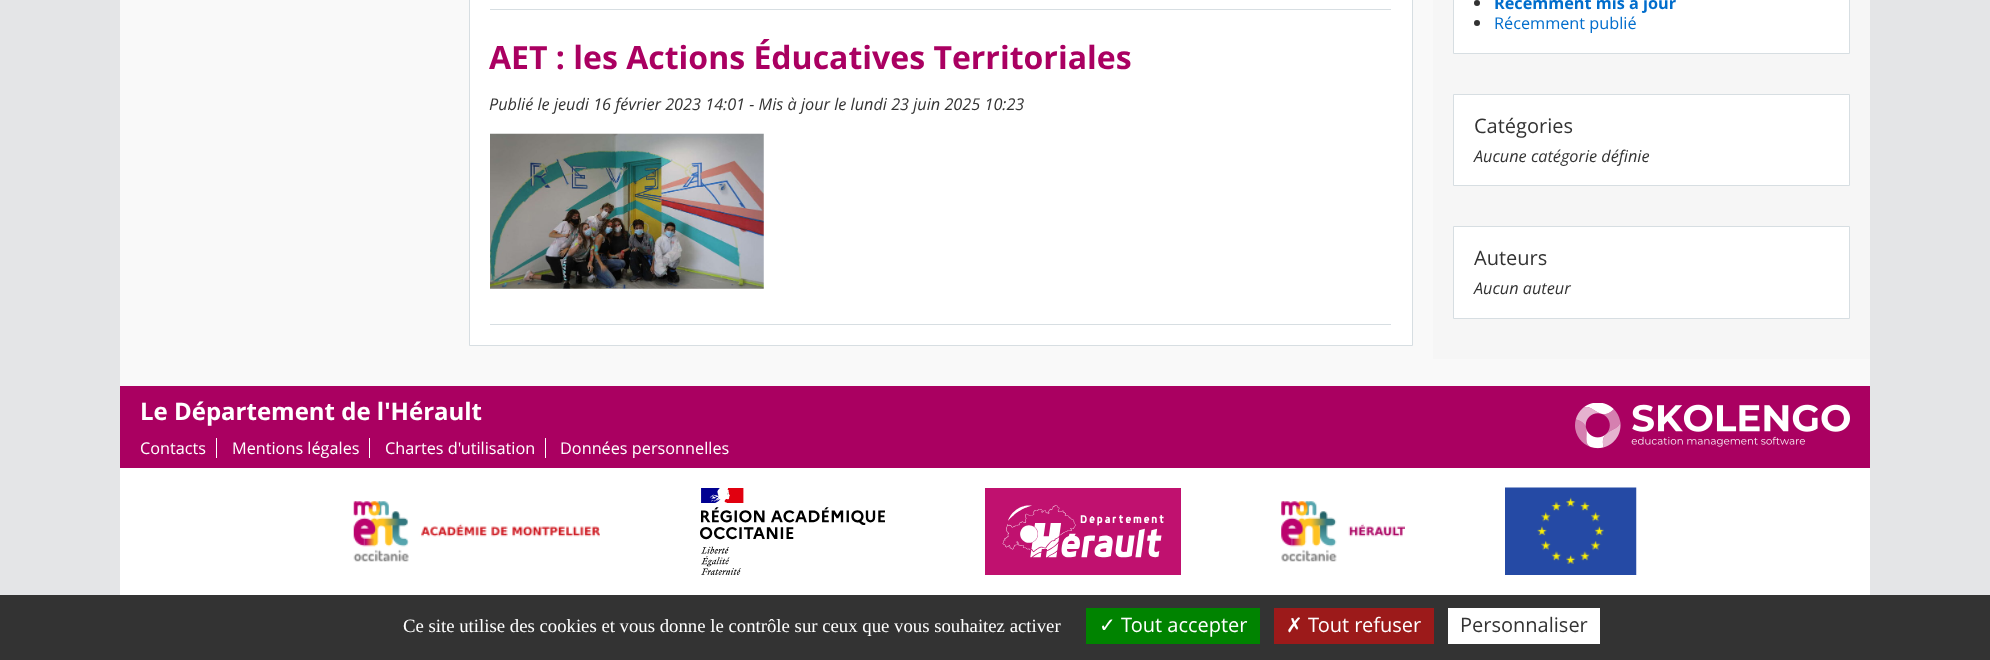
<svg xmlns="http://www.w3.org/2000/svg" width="1990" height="660">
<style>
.a{font:bold 32px Open Sans;fill:#aa0061}
.b{font:italic 16.25px Open Sans;fill:#333}
.c{font:bold 16.25px Open Sans;fill:#006dcc}
.d{font:16.25px Open Sans;fill:#006dcc}
.e{font:20px Open Sans;fill:#333}
.f{font:bold 24px Open Sans;fill:#fff}
.g{font:16.25px Open Sans;fill:#fff}
.h{font:18.75px Liberation Serif;fill:#fff}
.i{font:20px DejaVu Sans;fill:#fff}
.j{font:20px Open Sans;fill:#fff}
</style>
<rect width="100%" height="100%" fill="#e4e5e7"/>
<path fill="#fff" d="M120 468h1750v127H120z"/>
<path fill="#f9f9f9" d="M120 0h1750v386H120z"/>
<path fill="#fff" stroke="#d7dee2" d="M469.5 -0.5h943v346H469.5z"/>
<path fill="#d7dee2" d="M490 9h901v1H490z"/>
<path fill="#d7dee2" d="M490 324h901v1H490z"/>
<image href="1.png" x="490" y="133" width="274" height="156"/>
<path fill="#f6f6f6" d="M1433 0h437v359H1433z"/>
<path fill="#fff" stroke="#d7dee2" d="M1453.5 -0.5h396v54H1453.5z"/>
<circle fill="#333" cx="1477" cy="3" r="3"/>
<circle fill="#333" cx="1477" cy="23" r="3"/>
<path fill="#fff" stroke="#d7dee2" d="M1453.5 94.5h396v91H1453.5z"/>
<path fill="#fff" stroke="#d7dee2" d="M1453.5 226.5h396v92H1453.5z"/>
<path fill="#aa0061" d="M120 386h1750v82H120z"/>
<path fill="#fff" d="M216 438h1v20H216z"/>
<path fill="#fff" d="M369 438h1v20H369z"/>
<path fill="#fff" d="M545 438h1v20H545z"/>
<image href="2.png" x="1575" y="403" width="275" height="46"/>
<image href="3.png" x="353" y="501" width="247" height="61"/>
<image href="4.png" x="700" y="488" width="185" height="87"/>
<image href="5.png" x="985" y="488" width="196" height="87"/>
<image href="6.png" x="1281" y="501" width="124" height="61"/>
<image href="7.png" x="1505" y="487" width="132" height="88"/>
<path fill="#333" d="M0 595h1990v65H0z"/>
<path fill="#008300" d="M1086 608h174v36H1086z"/>
<path fill="#9c1a1a" d="M1274 608h160v36H1274z"/>
<path fill="#fff" d="M1448 608h152v36H1448z"/>
<text class="a" x="489" y="69">AET : les Actions Éducatives Territoriales</text>
<text class="b" x="489" y="110">Publié le jeudi 16 février 2023 14:01 - Mis à jour le lundi 23 juin 2025 10:23</text>
<text class="c" x="1494" y="9">Récemment mis à jour</text>
<text class="d" x="1494" y="29">Récemment publié</text>
<text class="e" x="1474" y="133">Catégories</text>
<text class="b" x="1474" y="162">Aucune catégorie définie</text>
<text class="e" x="1474" y="265">Auteurs</text>
<text class="b" x="1474" y="294">Aucun auteur</text>
<text class="f" x="140" y="420">Le Département de l'Hérault</text>
<text class="g" x="140" y="454">Contacts</text>
<text class="g" x="232" y="454">Mentions légales</text>
<text class="g" x="385" y="454">Chartes d'utilisation</text>
<text class="g" x="560" y="454">Données personnelles</text>
<text class="h" x="403" y="632">Ce site utilise des cookies et vous donne le contrôle sur ceux que vous souhaitez activer</text>
<text class="i" x="1099" y="632">✓</text>
<text class="j" x="1121" y="632">Tout accepter</text>
<text class="i" x="1286" y="632">✗</text>
<text class="j" x="1308" y="632">Tout refuser</text>
<text class="e" x="1460" y="632">Personnaliser</text>
</svg>
